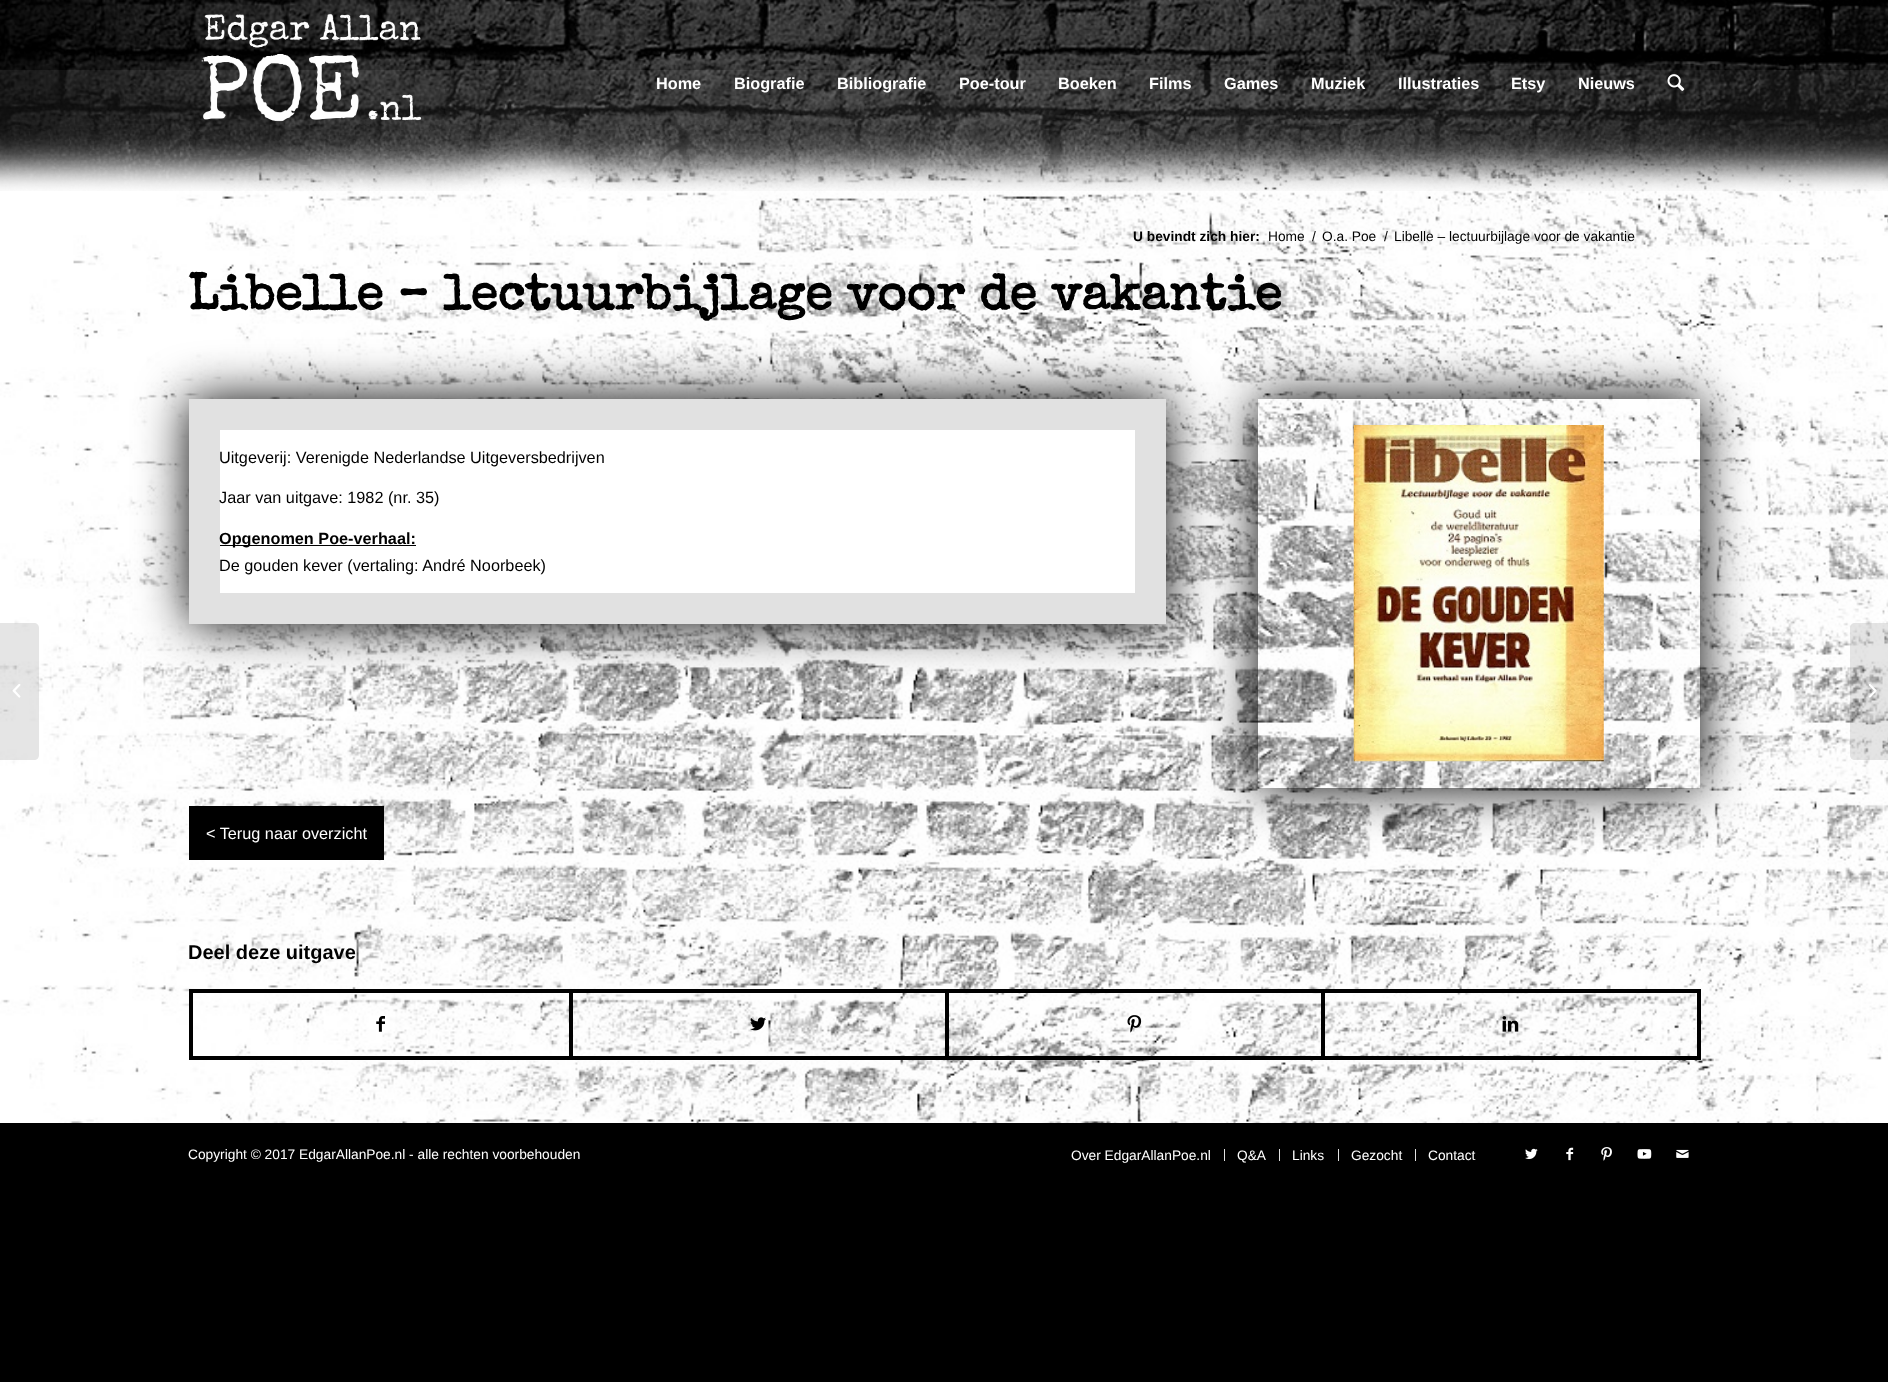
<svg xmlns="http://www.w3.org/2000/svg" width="1888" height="1382">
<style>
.a{font:bold 16.25px Liberation Sans;fill:#fff}
.b{font:bold 13.75px Liberation Sans;fill:#000}
.c{font:13.75px Liberation Sans;fill:#000}
.d{font:bold 50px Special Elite;fill:#000}
.e{font:16.25px Liberation Sans;fill:#000}
.f{font:bold 16.25px Liberation Sans;fill:#000}
.g{font:16.25px Liberation Sans;fill:#fff}
.h{font:bold 20px Liberation Sans;fill:#000}
.i{font:13.75px Liberation Sans;fill:#fff}
</style>
<defs>
<clipPath id="clip1"><path d="M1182 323h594v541h-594zm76 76h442v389h-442z" clip-rule="evenodd"/></clipPath>
</defs>
<rect width="100%" height="100%" fill="#000"/>
<image href="5.png" x="0" y="70" width="1888" height="1053"/>
<image href="1.png" x="0" y="0" width="1888" height="191"/>
<image href="2.png" x="201" y="14" width="221" height="108"/>
<image href="3.png" x="1667" y="74" width="18" height="17"/>
<path fill="#0000001a" d="M0 623h34c3 0 5 2 5 5v127c0 3-2 5-5 5h-34z"/>
<image href="4.png" x="12" y="684" width="9" height="14"/>
<path fill="#000" filter="blur(25px)" d="M189 399h977v225H189z"/>
<path fill="#fff" stroke="#e1e1e1" stroke-width="31" d="M204.5 414.5h946v194H204.5z"/>
<path fill="#000" d="M220 545h196v1H220z"/>
<g clip-path="url(#clip1)">
<path fill="#000" filter="blur(25px)" d="M1258 399h442v389H1258z"/>
</g>
<image href="6.png" x="1353" y="425" width="251" height="337"/>
<path fill="#000" d="M189 806h195v54H189z"/>
<path fill="none" stroke="#000" stroke-width="4" d="M191 991h1508v67H191z"/>
<image href="7.png" x="376" y="1016" width="9" height="16"/>
<path fill="#000" d="M569 993h4v63H569z"/>
<image href="8.png" x="750" y="1017" width="16" height="14"/>
<path fill="#000" d="M945 993h4v63H945z"/>
<image href="9.png" x="1127" y="1015" width="15" height="18"/>
<path fill="#000" d="M1321 993h4v63H1321z"/>
<image href="10.png" x="1502" y="1016" width="17" height="16"/>
<path fill="#e1e1e1" d="M1224 1149h1v12H1224z"/>
<path fill="#e1e1e1" d="M1279 1149h1v12H1279z"/>
<path fill="#e1e1e1" d="M1338 1149h1v12H1338z"/>
<path fill="#e1e1e1" d="M1415 1149h1v12H1415z"/>
<image href="11.png" x="1525" y="1148" width="13" height="11"/>
<image href="12.png" x="1566" y="1147" width="8" height="14"/>
<image href="13.png" x="1601" y="1147" width="11" height="14"/>
<image href="14.png" x="1637" y="1149" width="15" height="10"/>
<image href="15.png" x="1676" y="1149" width="13" height="9"/>
<path fill="#0000001a" d="M1855 623h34v137h-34c-3 0-5-2-5-5v-127c0-3 2-5 5-5z"/>
<image href="16.png" x="1868" y="684" width="9" height="14"/>
<text class="a" x="656" y="89">Home</text>
<text class="a" x="734" y="89">Biografie</text>
<text class="a" x="837" y="89">Bibliografie</text>
<text class="a" x="959" y="89">Poe-tour</text>
<text class="a" x="1058" y="89">Boeken</text>
<text class="a" x="1149" y="89">Films</text>
<text class="a" x="1224" y="89">Games</text>
<text class="a" x="1311" y="89">Muziek</text>
<text class="a" x="1398" y="89">Illustraties</text>
<text class="a" x="1511" y="89">Etsy</text>
<text class="a" x="1578" y="89">Nieuws</text>
<text class="b" x="1133" y="241">U bevindt zich hier:</text>
<text class="c" x="1268" y="241">Home</text>
<text class="c" x="1312" y="241">/</text>
<text class="c" x="1322" y="241">O.a. Poe</text>
<text class="c" x="1384" y="241">/</text>
<text class="c" x="1394" y="241">Libelle – lectuurbijlage voor de vakantie</text>
<text class="d" x="188" y="309">Libelle – lectuurbijlage voor de vakantie</text>
<text class="e" x="219" y="463">Uitgeverij: Verenigde Nederlandse Uitgeversbedrijven</text>
<text class="e" x="219" y="503">Jaar van uitgave: 1982 (nr. 35)</text>
<text class="f" x="219" y="544">Opgenomen Poe-verhaal:</text>
<text class="e" x="219" y="571">De gouden kever (vertaling: André Noorbeek)</text>
<text class="g" x="206" y="839">&lt; Terug naar overzicht</text>
<text class="h" x="188" y="959">Deel deze uitgave</text>
<text class="i" x="188" y="1159">Copyright © 2017 EdgarAllanPoe.nl - alle rechten voorbehouden</text>
<text class="i" x="1071" y="1160">Over EdgarAllanPoe.nl</text>
<text class="i" x="1237" y="1160">Q&amp;A</text>
<text class="i" x="1292" y="1160">Links</text>
<text class="i" x="1351" y="1160">Gezocht</text>
<text class="i" x="1428" y="1160">Contact</text>
</svg>
